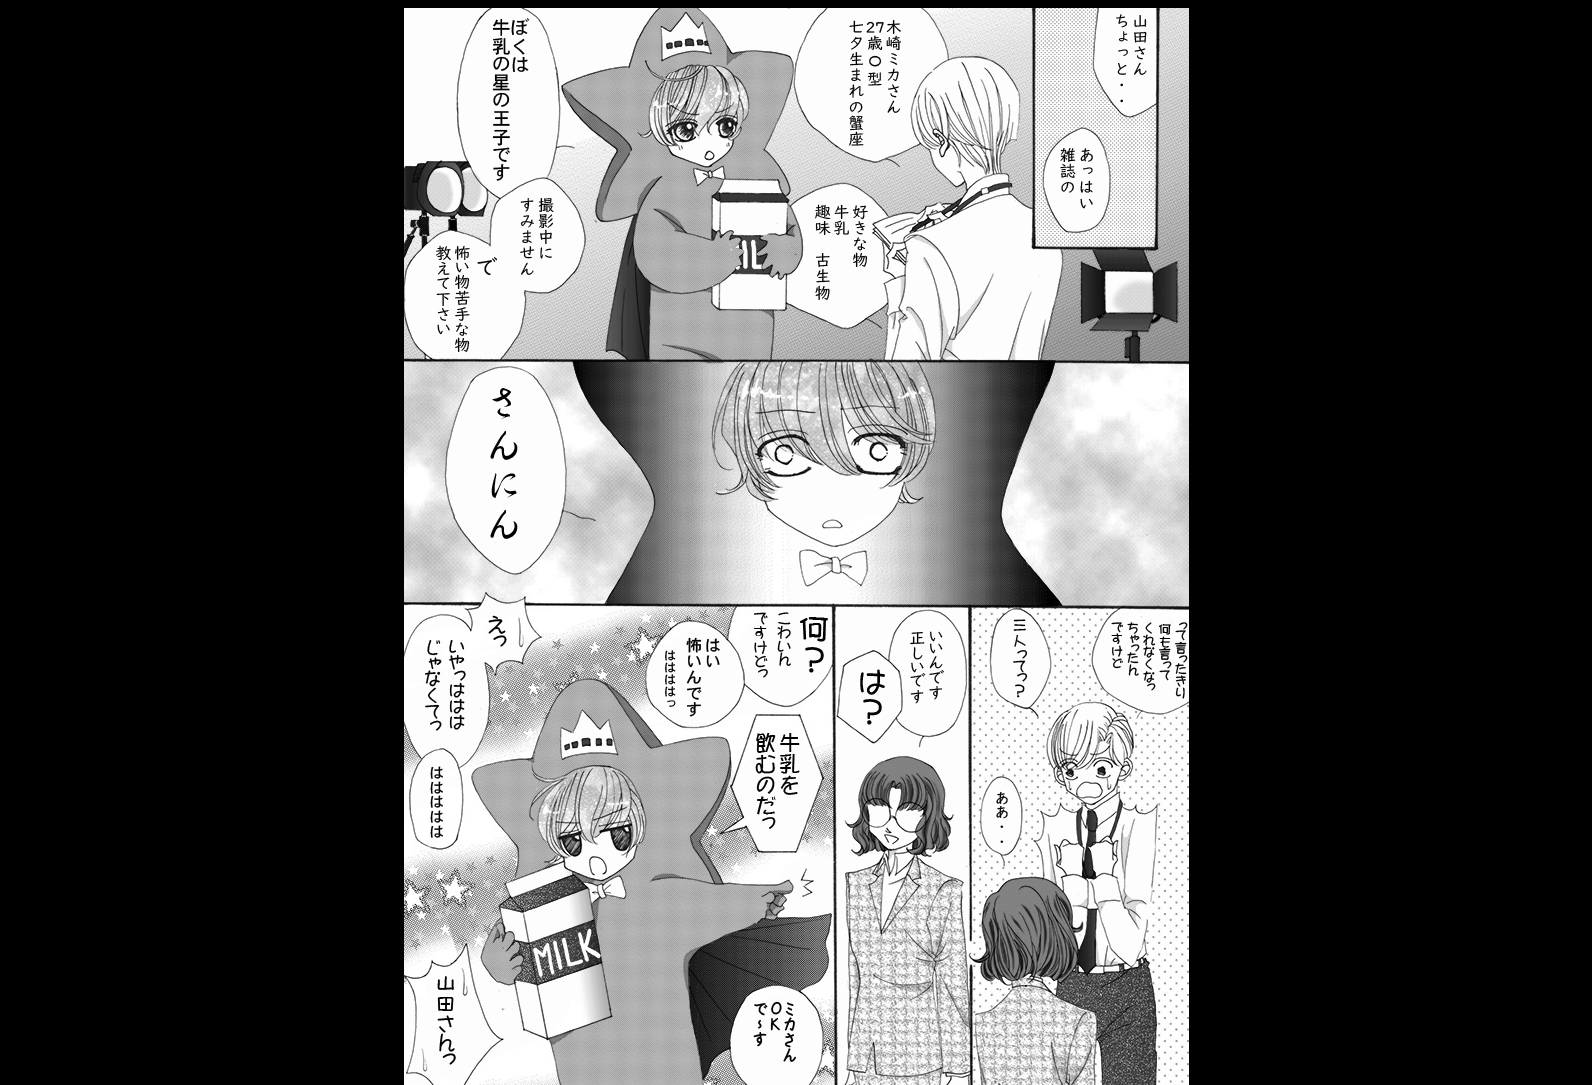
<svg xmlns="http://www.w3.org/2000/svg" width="1592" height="1085">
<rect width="100%" height="100%" fill="#000"/>
<image href="1.png" x="404" y="8" width="785" height="1077"/>
</svg>
